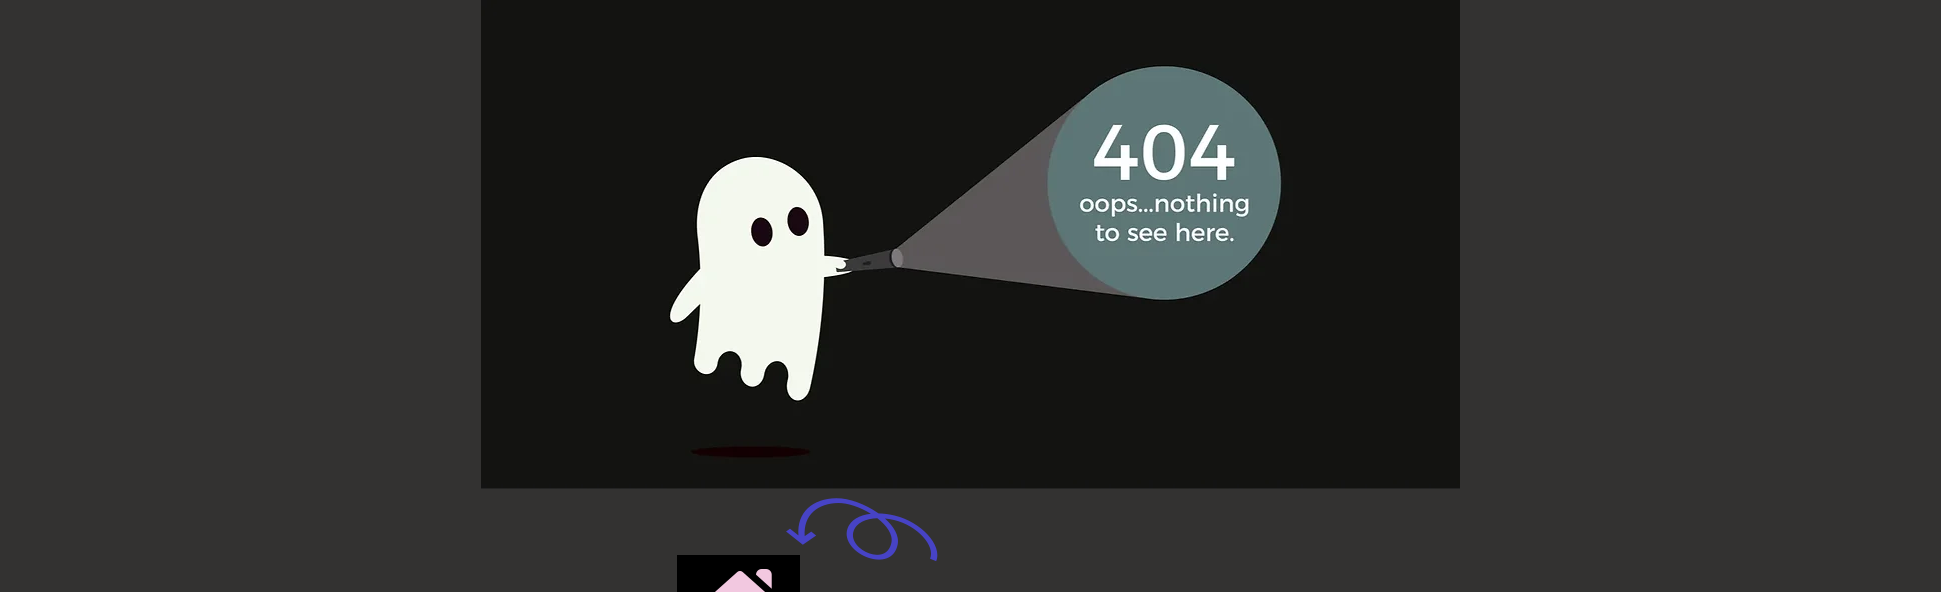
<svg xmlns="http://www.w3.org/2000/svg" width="1941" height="592">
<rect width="100%" height="100%" fill="#333231"/>
<image href="1.png" x="481" y="0" width="979" height="489"/>
<path fill="#000" d="M677 555h123v37H677z"/>
<image href="2.png" x="786" y="498" width="152" height="64"/>
<image href="3.png" x="715" y="569" width="57" height="23"/>
</svg>
